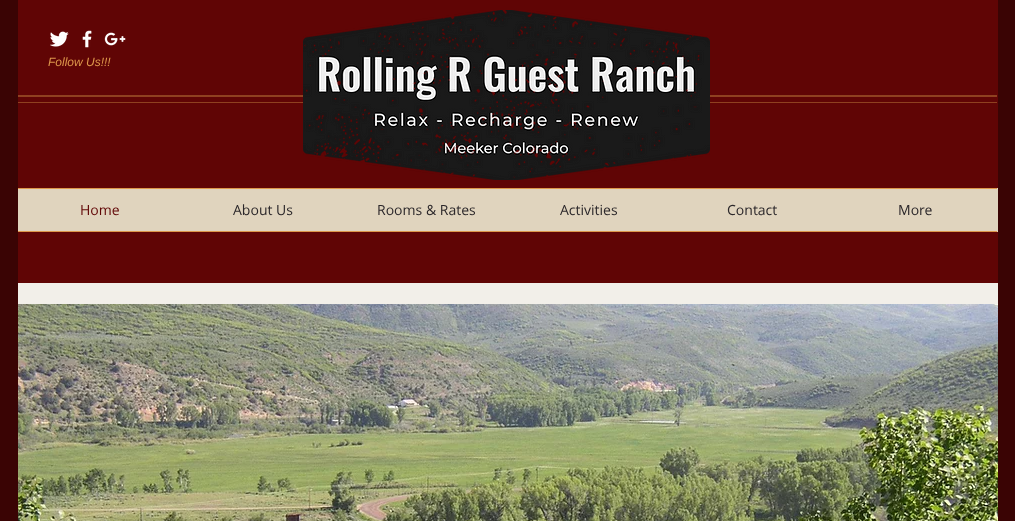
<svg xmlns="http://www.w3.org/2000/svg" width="1015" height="521">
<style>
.a{font:italic 12px Liberation Sans;fill:#dd974b}
.b{font:14px Open Sans;fill:#600505}
.c{font:14px Open Sans;fill:#2b272a}
</style>
<rect width="100%" height="100%" fill="#3a0404"/>
<path fill="#600505" d="M18 0h980v283H18z"/>
<image href="1.png" x="50" y="31" width="19" height="16"/>
<image href="2.png" x="82" y="30" width="10" height="18"/>
<image href="3.png" x="104" y="32" width="22" height="14"/>
<path fill="#8f4120" d="M18 95h287v2H18z"/>
<path fill="#8f4120" d="M18 102h287v1H18z"/>
<image href="4.png" x="303" y="10" width="407" height="170"/>
<path fill="#8f4120" d="M710 95h287v2H710z"/>
<path fill="#8f4120" d="M710 102h287v1H710z"/>
<path fill="#e0d4be" d="M18 188h980v44H18z"/>
<path fill="#dd974b" d="M18 188h979v1H18z"/>
<path fill="#dd974b" d="M18 231h979v1H18z"/>
<path fill="#f2efe9" d="M18 283h980v21H18z"/>
<image href="5.png" x="18" y="304" width="980" height="217"/>
<text class="a" x="48" y="66">Follow Us!!!</text>
<text class="b" x="80" y="215">Home</text>
<text class="c" x="233" y="215">About Us</text>
<text class="c" x="377" y="215">Rooms &amp; Rates</text>
<text class="c" x="560" y="215">Activities</text>
<text class="c" x="727" y="215">Contact</text>
<text class="c" x="898" y="215">More</text>
</svg>
